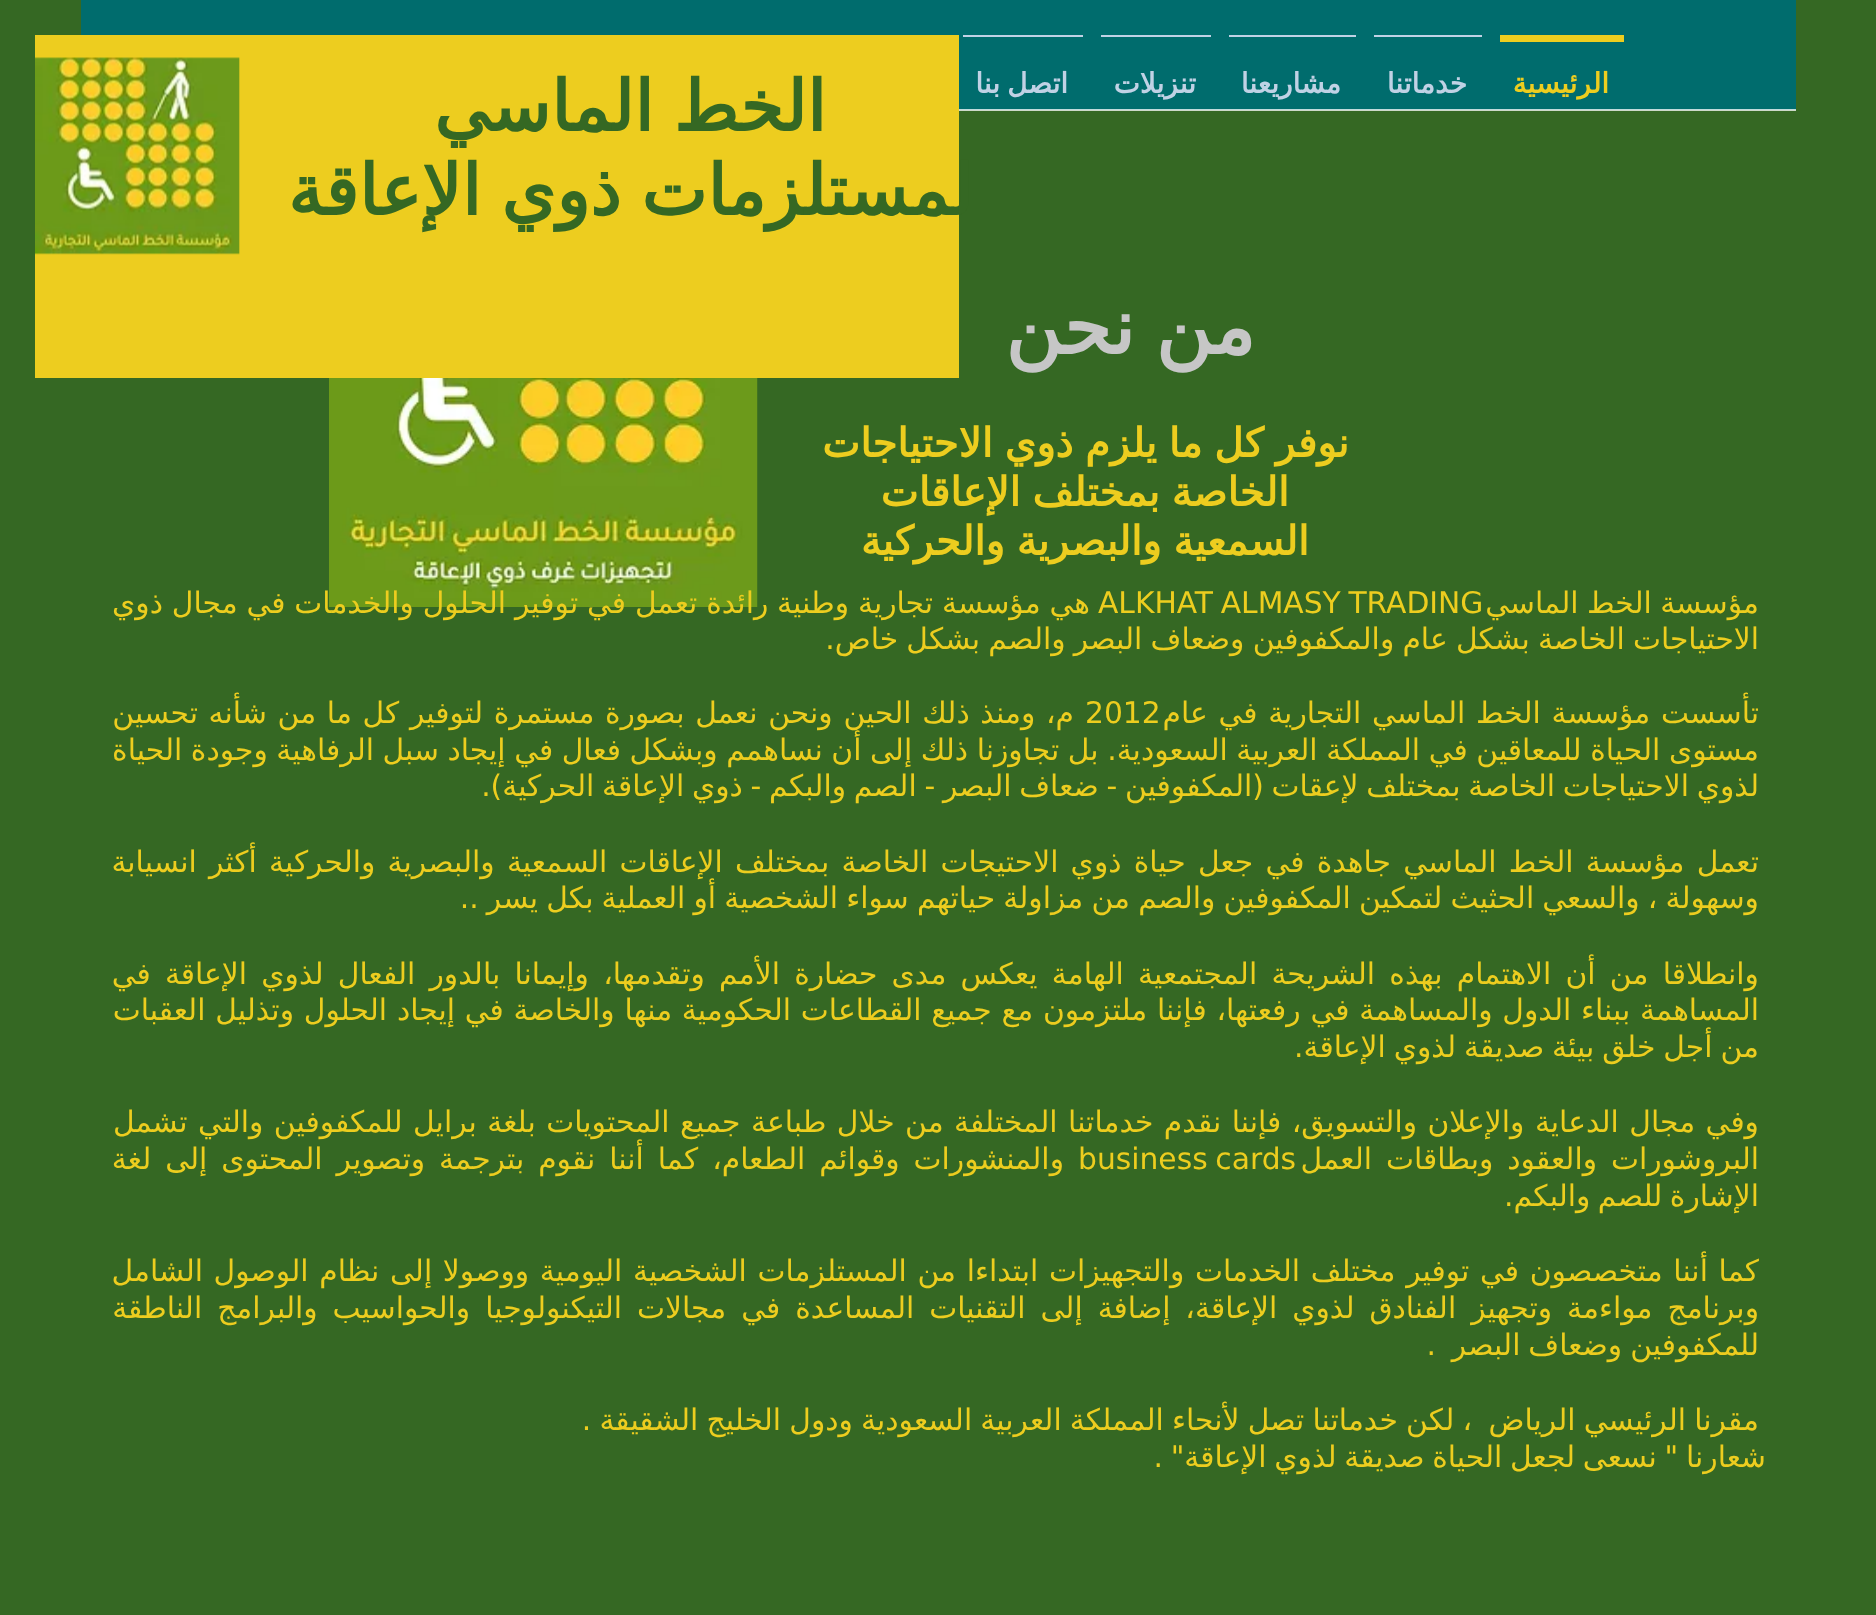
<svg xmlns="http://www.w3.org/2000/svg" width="1876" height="1615">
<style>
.a{font:bold 28px DejaVu Sans;direction:rtl;fill:#edcd1f}
.b{font:bold 28px DejaVu Sans;direction:rtl;fill:#c0d2e5}
.c{font:bold 70px DejaVu Sans;direction:rtl;fill:#356823}
.d{font:bold 77px DejaVu Sans;direction:rtl;fill:#c6c6c6}
.e{font:bold 40.25px DejaVu Sans;direction:rtl;fill:#edcd1f}
.f{font:29.75px DejaVu Sans;direction:rtl;fill:#edcd1f}
.g{font:29.75px DejaVu Sans;fill:#edcd1f}
</style>
<rect width="100%" height="100%" fill="#356823"/>
<path fill="#006c6d" d="M81 0h1715v109H81z"/>
<path fill="#bfdadb" d="M959 109h837v1H959z"/>
<path fill="#edcd1f" d="M1500 35h124v7H1500z"/>
<path fill="#c0d2e5" d="M1374 35h108v2H1374z"/>
<path fill="#c0d2e5" d="M1229 35h127v2H1229z"/>
<path fill="#c0d2e5" d="M1101 35h110v2H1101z"/>
<path fill="#c0d2e5" d="M963 35h120v2H963z"/>
<path fill="#edcd1f" d="M35 35h924v343H35z"/>
<image href="1.png" x="35" y="57" width="205" height="198"/>
<image href="2.png" x="329" y="378" width="429" height="229"/>
<path fill="#cdd9c8" d="M959 110h837v1H959z"/>
<text class="a" x="1609" y="93">الرئيسية</text>
<text class="b" x="1467" y="93">خدماتنا</text>
<text class="b" x="1341" y="93">مشاريعنا</text>
<text class="b" x="1196" y="93">تنزيلات</text>
<text class="b" x="1068" y="93" word-spacing="-2">اتصل بنا</text>
<text class="c" x="826" y="131" word-spacing="-2">الخط الماسي</text>
<text class="c" x="973" y="215" word-spacing="-2">لمستلزمات ذوي الإعاقة</text>
<text class="d" x="1255" y="354" word-spacing="-4">من نحن</text>
<text class="e" x="1349" y="457" word-spacing="-1">نوفر كل ما يلزم ذوي الاحتياجات</text>
<text class="e" x="1289" y="506" word-spacing="-1">الخاصة بمختلف الإعاقات</text>
<text class="e" x="1309" y="555" word-spacing="-1">السمعية والبصرية والحركية</text>
<text class="f" x="1759" y="613" word-spacing="-1">مؤسسة الخط الماسي</text>
<text class="g" x="1098" y="613" word-spacing="-1.75">ALKHAT ALMASY TRADING</text>
<text class="f" x="1090" y="613" word-spacing="-0.6">هي مؤسسة تجارية وطنية رائدة تعمل في توفير الحلول والخدمات في مجال ذوي</text>
<text class="f" x="1759" y="649" word-spacing="-1.25">الاحتياجات الخاصة بشكل عام والمكفوفين وضعاف البصر والصم بشكل خاص.</text>
<text class="f" x="1759" y="723" word-spacing="1.25">تأسست مؤسسة الخط الماسي التجارية في عام</text>
<text class="g" x="1085" y="723">2012</text>
<text class="f" x="1074" y="723" word-spacing="1.25">م، ومنذ ذلك الحين ونحن نعمل بصورة مستمرة لتوفير كل ما من شأنه تحسين</text>
<text class="f" x="1759" y="760" word-spacing="-0.9">مستوى الحياة للمعاقين في المملكة العربية السعودية. بل تجاوزنا ذلك إلى أن نساهمم وبشكل فعال في إيجاد سبل الرفاهية وجودة الحياة</text>
<text class="f" x="1759" y="796" word-spacing="-1.7">لذوي الاحتياجات الخاصة بمختلف لإعقات (المكفوفين - ضعاف البصر - الصم والبكم - ذوي الإعاقة الحركية).</text>
<text class="f" x="1759" y="872" word-spacing="2.75">تعمل مؤسسة الخط الماسي جاهدة في جعل حياة ذوي الاحتيجات الخاصة بمختلف الإعاقات السمعية والبصرية والحركية أكثر انسيابة</text>
<text class="f" x="1759" y="908" word-spacing="-1.3">وسهولة ، والسعي الحثيث لتمكين المكفوفين والصم من مزاولة حياتهم سواء الشخصية أو العملية بكل يسر ..</text>
<text class="f" x="1759" y="984" word-spacing="4.75">وانطلاقا من أن الاهتمام بهذه الشريحة المجتمعية الهامة يعكس مدى حضارة الأمم وتقدمها، وإيمانا بالدور الفعال لذوي الإعاقة في</text>
<text class="f" x="1759" y="1020" word-spacing="0.3">المساهمة ببناء الدول والمساهمة في رفعتها، فإننا ملتزمون مع جميع القطاعات الحكومية منها والخاصة في إيجاد الحلول وتذليل العقبات</text>
<text class="f" x="1759" y="1057" word-spacing="-1.5">من أجل خلق بيئة صديقة لذوي الإعاقة.</text>
<text class="f" x="1759" y="1132" word-spacing="1">وفي مجال الدعاية والإعلان والتسويق، فإننا نقدم خدماتنا المختلفة من خلال طباعة جميع المحتويات بلغة برايل للمكفوفين والتي تشمل</text>
<text class="f" x="1759" y="1169" word-spacing="4.5">البروشورات والعقود وبطاقات العمل</text>
<text class="g" x="1078" y="1169" word-spacing="-1.75">business cards</text>
<text class="f" x="1064" y="1169" word-spacing="4.5">والمنشورات وقوائم الطعام، كما أننا نقوم بترجمة وتصوير المحتوى إلى لغة</text>
<text class="f" x="1759" y="1206" word-spacing="-2">الإشارة للصم والبكم.</text>
<text class="f" x="1759" y="1281" word-spacing="1.2">كما أننا متخصصون في توفير مختلف الخدمات والتجهيزات ابتداءا من المستلزمات الشخصية اليومية ووصولا إلى نظام الوصول الشامل</text>
<text class="f" x="1759" y="1318" word-spacing="5.5">وبرنامج مواءمة وتجهيز الفنادق لذوي الإعاقة، إضافة إلى التقنيات المساعدة في مجالات التيكنولوجيا والحواسيب والبرامج الناطقة</text>
<text class="f" xml:space="preserve" x="1759" y="1355" word-spacing="-1.5">للمكفوفين وضعاف البصر  .</text>
<text class="f" xml:space="preserve" x="1759" y="1430" word-spacing="-1.25">مقرنا الرئيسي الرياض  ، لكن خدماتنا تصل لأنحاء المملكة العربية السعودية ودول الخليج الشقيقة .</text>
<text class="f" x="1766" y="1467" word-spacing="-1.75">شعارنا " نسعى لجعل الحياة صديقة لذوي الإعاقة" .</text>
</svg>
